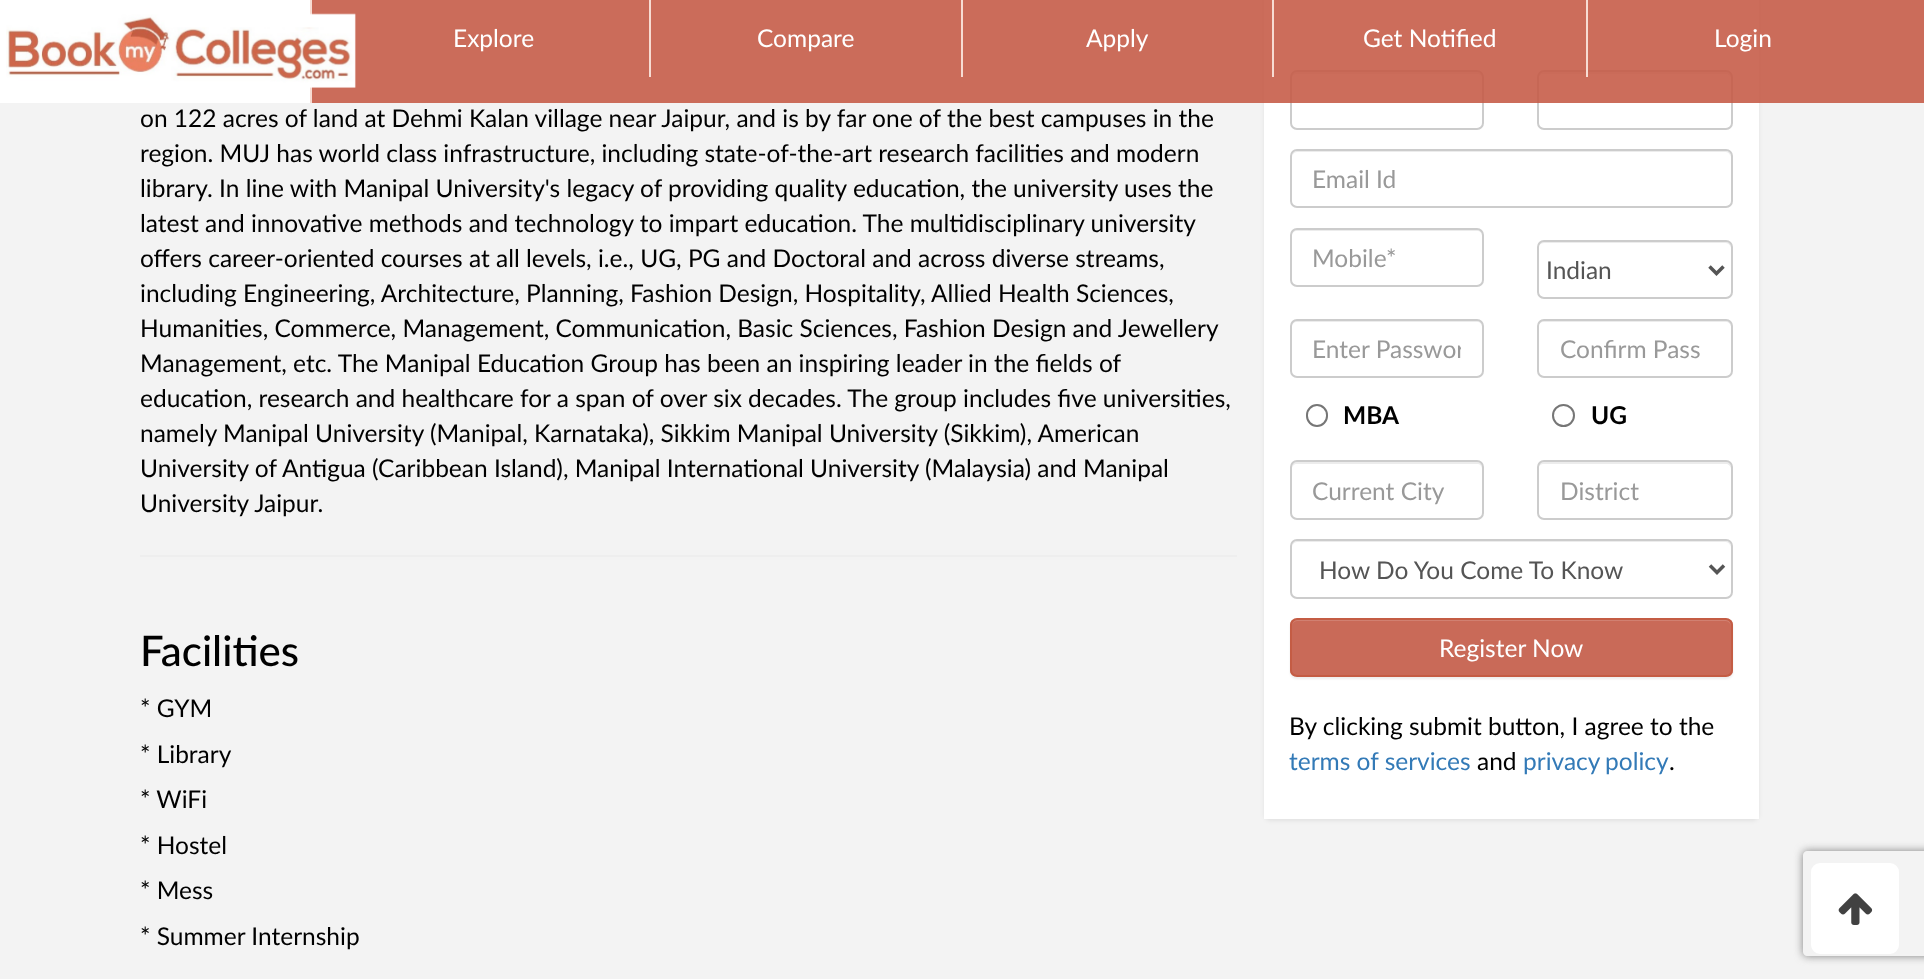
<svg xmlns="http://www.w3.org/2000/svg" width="1924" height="979">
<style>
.a{font:24.5px Lato;fill:#fff}
.b{font:24.5px Lato;fill:#000}
.c{font:500 42px Lato;fill:#000}
.d{font:24.5px Lato;fill:#999}
.e{font:24.5px Lato;fill:#555}
.f{font:bold 24.5px Lato;fill:#000}
.g{font:24.5px Lato;fill:#337ab7}
</style>
<defs>
<clipPath id="clip1"><rect x="1290" y="618" width="443" height="59" rx="7"/></clipPath>
<clipPath id="clip2"><path d="M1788 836h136v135h-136zm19 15h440c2 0 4 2 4 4v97c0 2-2 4-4 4h-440c-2 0-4-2-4-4v-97c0-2 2-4 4-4z" clip-rule="evenodd"/></clipPath>
<clipPath id="clip3"><path d="M1313 334h148v30H1313z"/></clipPath>
</defs>
<rect width="100%" height="100%" fill="#f3f3f3"/>
<rect fill="#00000012" filter="blur(2px)" x="1264" y="-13" width="495" height="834" rx="7"/>
<path fill="#fff" d="M1264 0h495v819H1264z"/>
<path fill="#ececec" d="M1297 74h180c3 0 5 2 5 5v-2c0-3-2-5-5-5h-180c-3 0-5 2-5 5v2c0-3 2-5 5-5z"/>
<rect fill="none" stroke="#ccc" stroke-width="2" x="1291" y="71" width="192" height="58" rx="6"/>
<path fill="#ececec" d="M1544 74h182c2 0 5 2 5 5v-2c0-3-2-5-5-5h-183c-3 0-5 2-5 5v2c0-3 3-5 6-5z"/>
<rect fill="none" stroke="#ccc" stroke-width="2" x="1538" y="71" width="194" height="58" rx="6"/>
<path fill="#c55944e0" d="M312 0h1612v103H312z"/>
<path fill="#fff" d="M0 0h310v103H0z"/>
<path fill="#f7dcd3" d="M310 0h2v103H310z"/>
<image href="1.png" x="6" y="13" width="350" height="75"/>
<path fill="#f7dcd3" d="M649 0h2v77H649z"/>
<path fill="#f7dcd3" d="M961 0h2v77H961z"/>
<path fill="#f7dcd3" d="M1272 0h2v77H1272z"/>
<path fill="#f7dcd3" d="M1586 0h2v77H1586z"/>
<path fill="#eee" d="M140 555h1097v2H140z"/>
<path fill="#ececec" d="M1297 152h429c2 0 5 3 5 6c0-3-1-7-5-7h-429c-4 0-5 4-5 7c0-3 2-6 5-6z"/>
<rect fill="none" stroke="#ccc" stroke-width="2" x="1291" y="150" width="441" height="57" rx="6"/>
<path fill="#ececec" d="M1297 231h180c3 0 5 2 5 5v-2c0-3-2-5-5-5h-180c-3 0-5 2-5 5v2c0-3 2-5 5-5z"/>
<rect fill="none" stroke="#ccc" stroke-width="2" x="1291" y="229" width="192" height="57" rx="6"/>
<path fill="#ececec" d="M1544 243h182c2 0 5 3 5 5v-1c0-3-2-5-5-5h-183c-3 0-5 2-5 5v1c0-2 3-5 6-5z"/>
<rect fill="none" stroke="#ccc" stroke-width="2" x="1538" y="241" width="194" height="57" rx="6"/>
<path fill="none" stroke="#555" stroke-width="3.5" d="M1709.5 266.5l7 7l7-7"/>
<path fill="#ececec" d="M1297 322h180c3 0 5 2 5 5v-2c0-3-2-5-5-5h-180c-3 0-5 2-5 5v2c0-3 2-5 5-5z"/>
<rect fill="none" stroke="#ccc" stroke-width="2" x="1291" y="320" width="192" height="57" rx="6"/>
<path fill="#ececec" d="M1544 322h182c2 0 5 2 5 5v-2c0-3-2-5-5-5h-183c-3 0-5 2-5 5v2c0-3 3-5 6-5z"/>
<rect fill="none" stroke="#ccc" stroke-width="2" x="1538" y="320" width="194" height="57" rx="6"/>
<rect fill="none" stroke="#767676" stroke-width="2" x="1307" y="405" width="20" height="21" rx="10"/>
<circle fill="none" stroke="#767676" stroke-width="2" cx="1563.5" cy="415.5" r="10.5"/>
<path fill="#ececec" d="M1297 464h180c3 0 5 2 5 5v-2c0-3-2-5-5-5h-180c-3 0-5 2-5 5v2c0-3 2-5 5-5z"/>
<rect fill="none" stroke="#ccc" stroke-width="2" x="1291" y="461" width="192" height="58" rx="6"/>
<path fill="#ececec" d="M1544 464h182c2 0 5 2 5 5v-2c0-3-2-5-5-5h-183c-3 0-5 2-5 5v2c0-3 3-5 6-5z"/>
<rect fill="none" stroke="#ccc" stroke-width="2" x="1538" y="461" width="194" height="58" rx="6"/>
<path fill="#ececec" d="M1297 542h429c2 0 5 3 5 6c0-3-1-7-5-7h-429c-4 0-5 4-5 7c0-3 2-6 5-6z"/>
<rect fill="none" stroke="#ccc" stroke-width="2" x="1291" y="540" width="441" height="58" rx="6"/>
<path fill="none" stroke="#555" stroke-width="3.5" d="M1710 565.5l7 7l7-7"/>
<rect fill="#00000012" filter="blur(1px)" x="1290" y="620" width="443" height="59" rx="7"/>
<g clip-path="url(#clip1)">
<path fill="#c96a58" d="M1290 620h443v56H1290z"/>
</g>
<path fill="#d18071" d="M1297 621h429c2 0 5 3 5 5c0-3-2-6-5-6h-429c-3 0-5 3-5 6c0-2 2-5 5-5z"/>
<rect fill="none" stroke="#c45c44" stroke-width="2" x="1291" y="619" width="441" height="57" rx="6"/>
<rect fill="#fff" stroke="#fff" stroke-width="5" x="1813.5" y="865.5" width="83" height="86" rx="6.5"/>
<image href="2.png" x="1838" y="893" width="35" height="32"/>
<g clip-path="url(#clip2)">
<rect fill="#808080" filter="blur(4.5px)" x="1803" y="851" width="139" height="105" rx="4"/>
</g>
<text class="a" x="453" y="47">Explore</text>
<text class="a" x="757" y="47">Compare</text>
<text class="a" x="1086" y="47">Apply</text>
<text class="a" x="1363" y="47">Get Notified</text>
<text class="a" x="1714" y="47">Login</text>
<text class="b" x="140" y="127">on 122 acres of land at Dehmi Kalan village near Jaipur, and is by far one of the best campuses in the</text>
<text class="b" x="140" y="162">region. MUJ has world class infrastructure, including state-of-the-art research facilities and modern</text>
<text class="b" x="140" y="197">library. In line with Manipal University's legacy of providing quality education, the university uses the</text>
<text class="b" x="140" y="232">latest and innovative methods and technology to impart education. The multidisciplinary university</text>
<text class="b" x="140" y="267">offers career-oriented courses at all levels, i.e., UG, PG and Doctoral and across diverse streams,</text>
<text class="b" x="140" y="302">including Engineering, Architecture, Planning, Fashion Design, Hospitality, Allied Health Sciences,</text>
<text class="b" x="140" y="337">Humanities, Commerce, Management, Communication, Basic Sciences, Fashion Design and Jewellery</text>
<text class="b" x="140" y="372">Management, etc. The Manipal Education Group has been an inspiring leader in the fields of</text>
<text class="b" x="140" y="407">education, research and healthcare for a span of over six decades. The group includes five universities,</text>
<text class="b" x="140" y="442">namely Manipal University (Manipal, Karnataka), Sikkim Manipal University (Sikkim), American</text>
<text class="b" x="140" y="477">University of Antigua (Caribbean Island), Manipal International University (Malaysia) and Manipal</text>
<text class="b" x="140" y="512">University Jaipur.</text>
<text class="c" x="140" y="666">Facilities</text>
<text class="b" x="140" y="717">* GYM</text>
<text class="b" x="140" y="763">* Library</text>
<text class="b" x="140" y="808">* WiFi</text>
<text class="b" x="140" y="854">* Hostel</text>
<text class="b" x="140" y="899">* Mess</text>
<text class="b" x="140" y="945">* Summer Internship</text>
<text class="d" x="1312" y="188">Email Id</text>
<text class="d" x="1312" y="267">Mobile*</text>
<text class="e" x="1546" y="279">Indian</text>
<g clip-path="url(#clip3)">
<text class="d" x="1312" y="358">Enter Passwor</text>
</g>
<text class="d" x="1560" y="358">Confirm Pass</text>
<text class="f" x="1343" y="424">MBA</text>
<text class="f" x="1591" y="424">UG</text>
<text class="d" x="1312" y="500">Current City</text>
<text class="d" x="1560" y="500">District</text>
<text class="e" x="1319" y="579">How Do You Come To Know</text>
<text class="a" x="1439" y="657">Register Now</text>
<text class="b" x="1289" y="735">By clicking submit button, I agree to the</text>
<text class="g" x="1289" y="770">terms of services</text>
<text class="b" x="1477" y="770">and</text>
<text class="g" x="1523" y="770" word-spacing="-1">privacy policy</text>
<text class="b" x="1669" y="770">.</text>
</svg>
